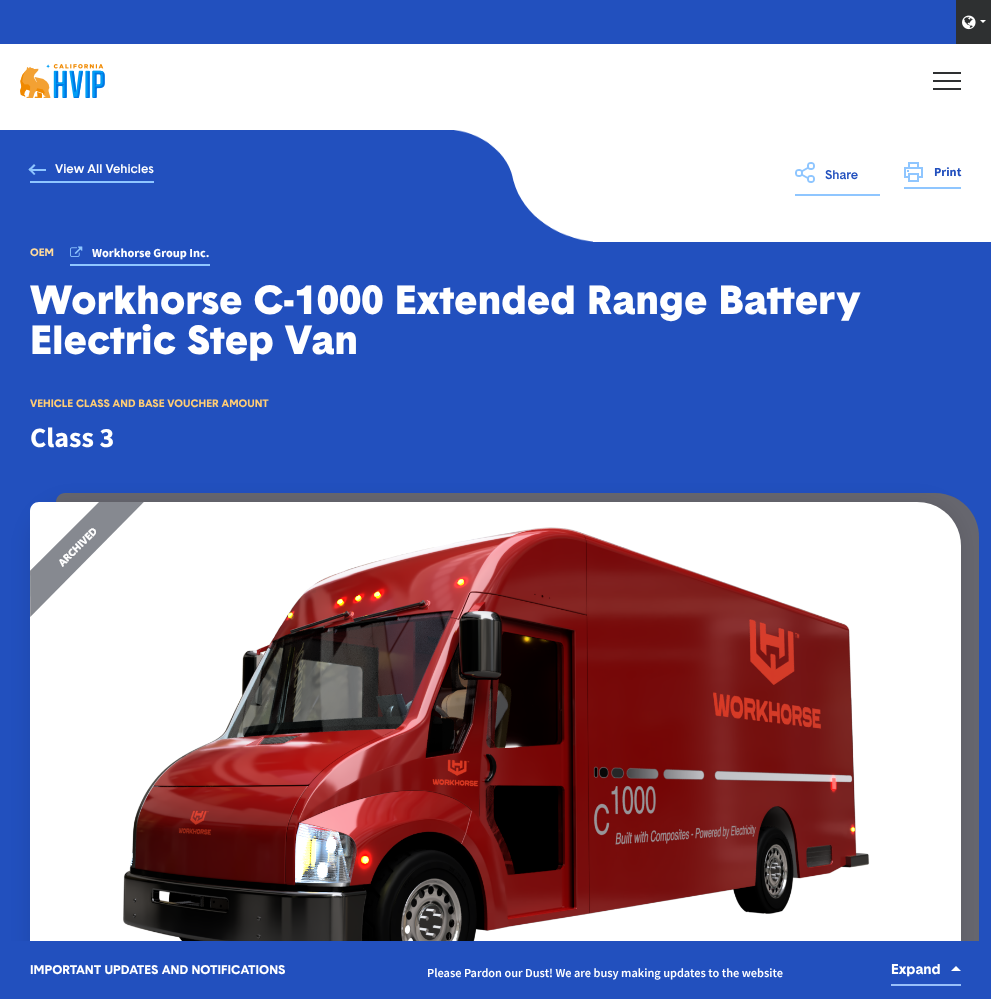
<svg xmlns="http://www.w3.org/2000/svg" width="991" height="999">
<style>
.a{font:500 12.3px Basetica;fill:#fff}
.b{font:500 12.3px Basetica;fill:#2250be}
.c{font:bold 12.3px Source Sans Pro;fill:#2250be}
.d{font:bold 10.6px Basetica;fill:#ffdb9c}
.e{font:bold 12.3px Source Sans Pro;fill:#fff}
.f{font:900 39.6px Basetica;fill:#fff}
.g{font:bold 10.6px Basetica;fill:#ffcd75}
.h{font:bold 28px Source Sans Pro;fill:#fff}
.i{font:bold 12.3px Basetica;fill:#fff}
.j{font:600 12.3px Source Sans Pro;fill:#fff}
.k{font:bold 14px Basetica;fill:#fff}
</style>
<rect width="100%" height="100%" fill="#fff"/>
<path fill="#2250be" d="M0 0h956v44H0z"/>
<path fill="#2e3031" d="M956 0h35v44H956z"/>
<image href="1.png" x="962" y="15" width="14" height="15"/>
<path fill="#fff" d="M980 20h6l-3 3z"/>
<image href="2.png" x="20" y="64" width="85" height="34"/>
<path fill="#2e3031" d="M933 72h28v2H933z"/>
<path fill="#2e3031" d="M933 80h28v2H933z"/>
<path fill="#2e3031" d="M933 88h28v2H933z"/>
<path fill="#2250be" d="M0 130h991v811H0z"/>
<image href="3.png" x="454" y="130" width="139" height="112"/>
<path fill="#fff" d="M593 130h398v112H593z"/>
<path fill="#8fc6ff" d="M30 169h16v2H30z"/>
<path fill="#8fc6ff" d="M30 168l5.5 6l-1.5 1l-5.5-5.5z"/>
<path fill="#8fc6ff" d="M34 164l1.5 1.5l-5.5 5.5l-1.5-1.5z"/>
<path fill="#8fc6ff" d="M30 181h124v2H30z"/>
<image href="4.png" x="795" y="162" width="20" height="21"/>
<path fill="#8fc6ff" d="M795 194h85v2H795z"/>
<image href="5.png" x="904" y="162" width="19" height="20"/>
<path fill="#8fc6ff" d="M904 187h57v2H904z"/>
<image href="6.png" x="70" y="246" width="13" height="11"/>
<path fill="#8fc6ff" d="M70 264h140v2H70z"/>
<path fill="#67676f" d="M65 493h870c24.5 0 44 19.5 44 44v455c0 5-4 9-9 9h-888c-14.5 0-26-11.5-26-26v-473c0-5 4-9 9-9z"/>
<rect fill="#0000001a" filter="blur(10px)" x="30" y="502" width="931" height="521" rx="44"/>
<path fill="#fff" d="M39 502h878c24.5 0 44 19.5 44 44v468c0 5-4 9-9 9h-896c-14.5 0-26-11.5-26-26v-486c0-5 4-9 9-9z"/>
<image href="8.png" x="123" y="527" width="747" height="414"/>
<image href="7.png" x="30" y="502" width="114" height="115"/>
<path fill="#2250be" d="M0 941h991v58H0z"/>
<path fill="#99c0f9" d="M891 984h70v2H891z"/>
<path fill="#fff" d="M961 971h-10l5-5z"/>
<text class="a" x="55" y="173">View All Vehicles</text>
<text class="b" x="825" y="179">Share</text>
<text class="c" x="934" y="176">Print</text>
<text class="d" x="30" y="256">OEM</text>
<text class="e" x="92" y="257">Workhorse Group Inc.</text>
<text class="f" x="30" y="314">Workhorse C-1000 Extended Range Battery</text>
<text class="f" x="30" y="354">Electric Step Van</text>
<text class="g" x="30" y="407">VEHICLE CLASS AND BASE VOUCHER AMOUNT</text>
<text class="h" x="30" y="447">Class 3</text>
<text class="i" x="30" y="974">IMPORTANT UPDATES AND NOTIFICATIONS</text>
<text class="j" x="427" y="977">Please Pardon our Dust! We are busy making updates to the website</text>
<text class="k" x="891" y="974">Expand</text>
</svg>
